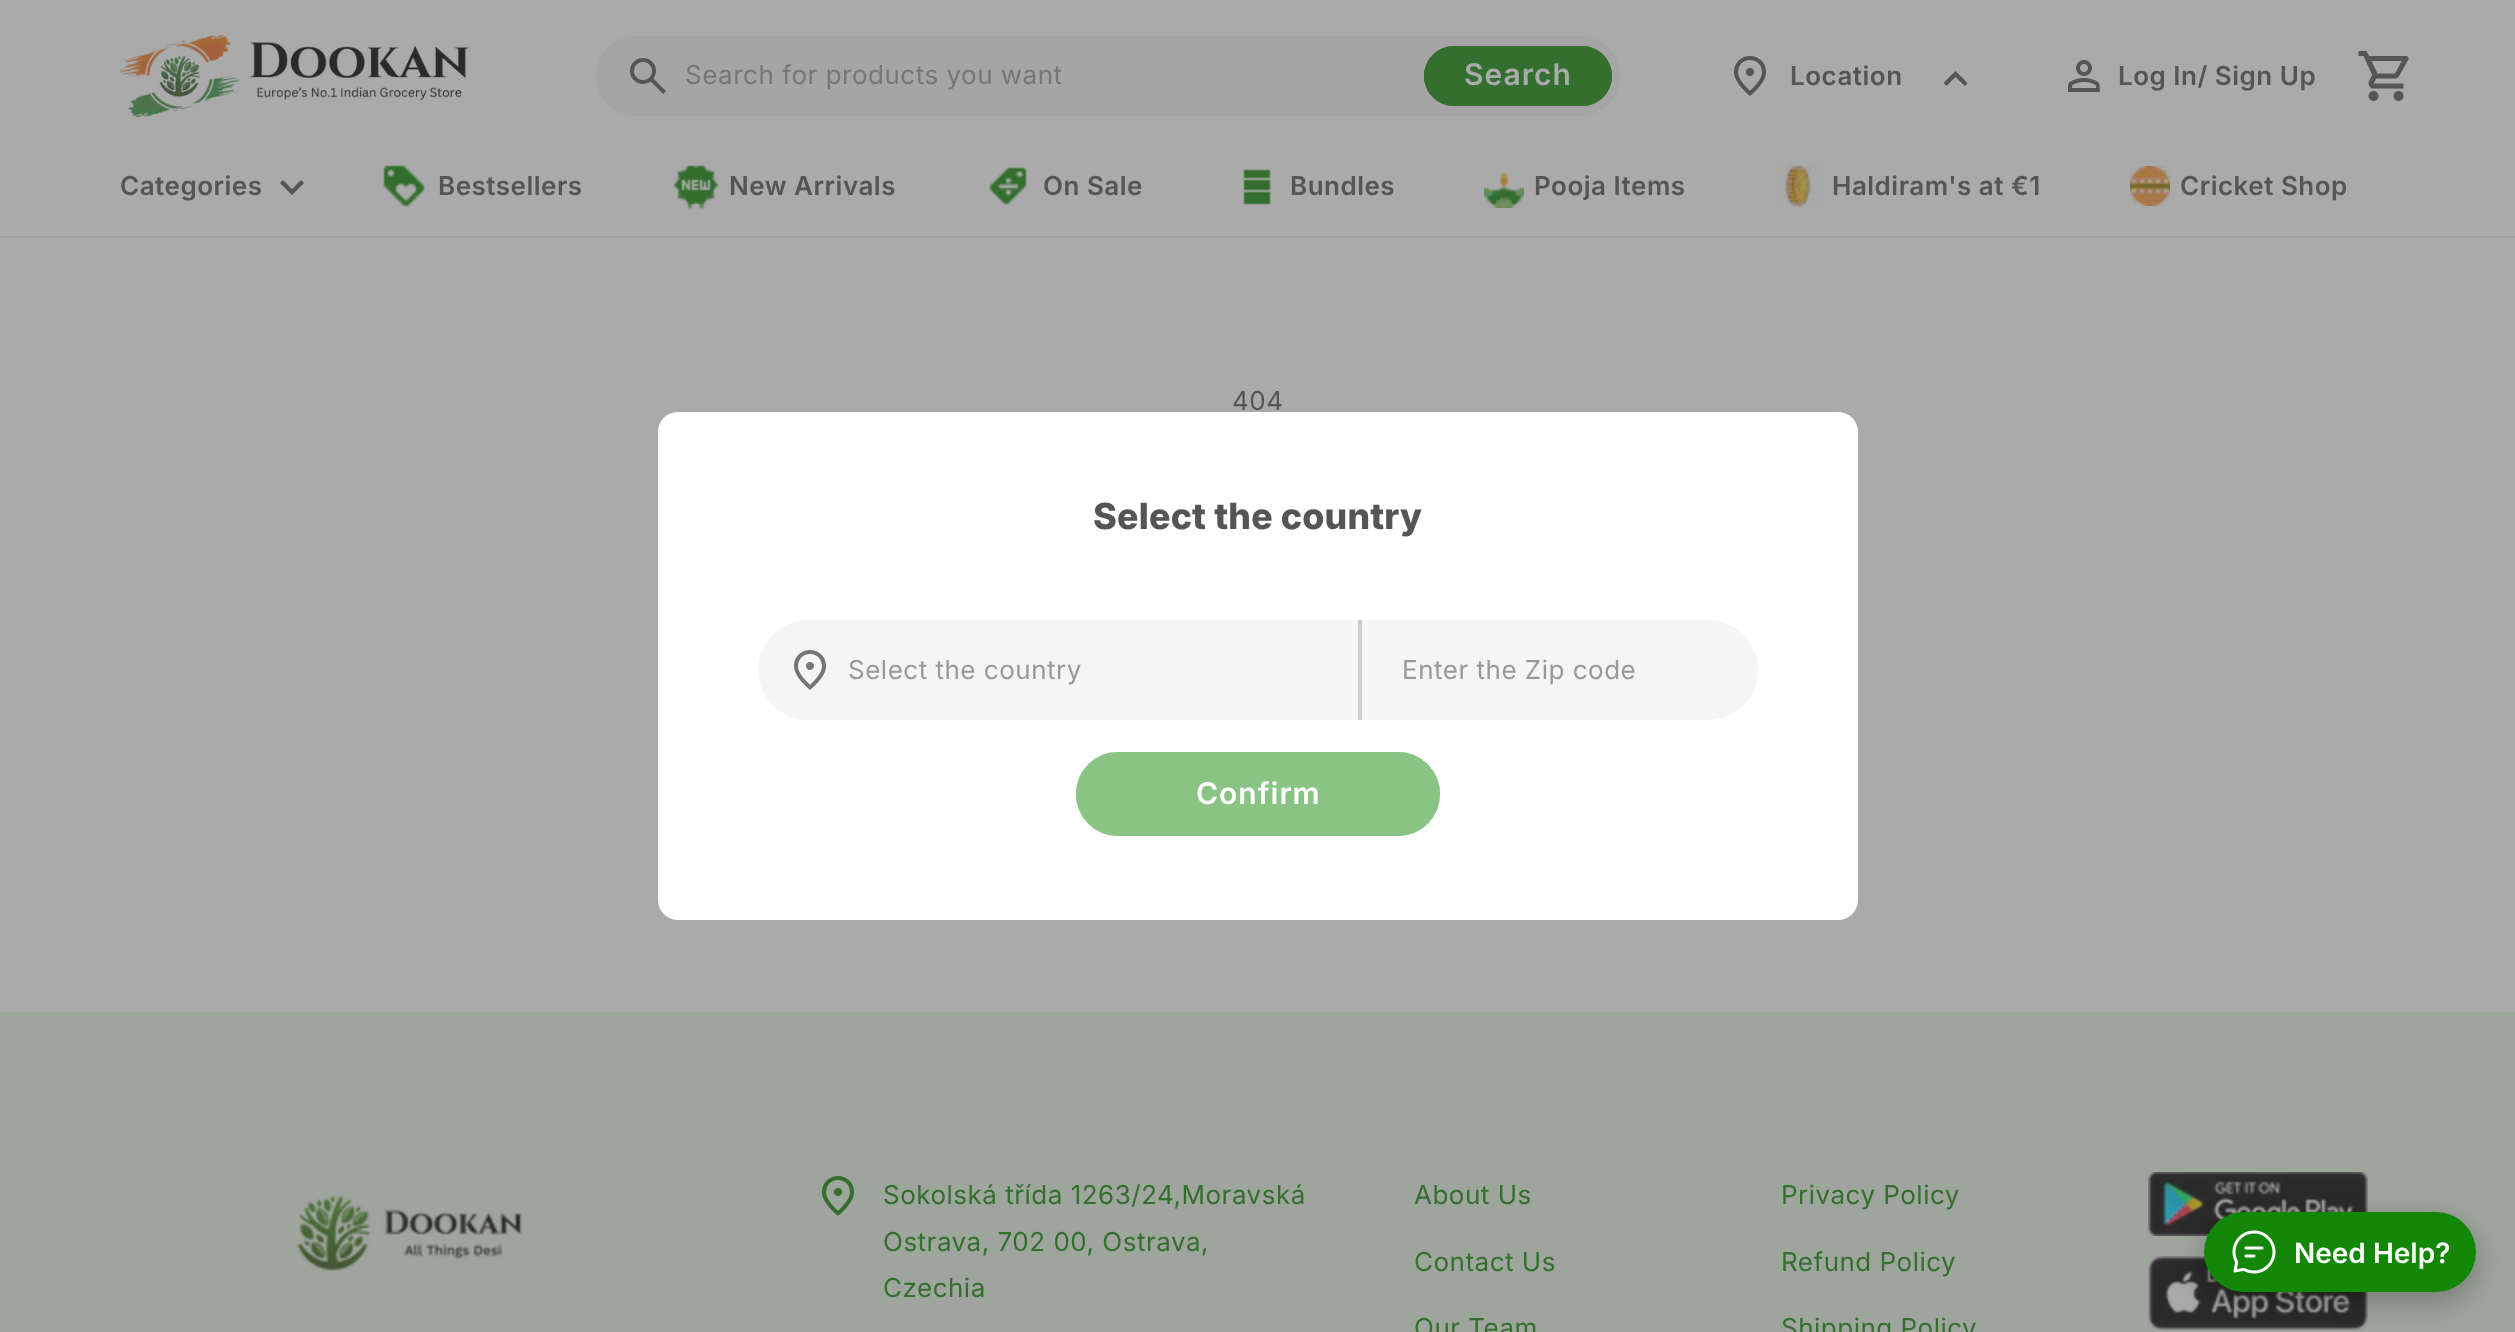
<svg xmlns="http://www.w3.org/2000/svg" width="2515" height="1332">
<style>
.a{font:26px Inter;letter-spacing:0.5px;fill:#777}
.b{font:600 30px Inter;letter-spacing:1px;fill:#aaa}
.c{font:600 26px Inter;letter-spacing:0.5px;fill:#555}
.d{font:800 36px Inter;letter-spacing:0.25px;fill:#555}
.e{font:26px Inter;letter-spacing:0.5px;fill:#999}
.f{font:600 30px Inter;letter-spacing:1px;fill:#fff}
.g{font:26px Inter;letter-spacing:0.5px;fill:#555}
.h{font:26px Inter;letter-spacing:0.5px;fill:#346f2f}
.i{font:600 28px Inter;fill:#fff}
</style>
<rect width="100%" height="100%" fill="#aaa"/>
<path fill="#a3a3a3" d="M0 236h2515v2H0z"/>
<image href="1.png" x="119" y="33" width="350" height="88"/>
<rect fill="#a5a5a5" x="596" y="36" width="1024" height="80" rx="40"/>
<image href="2.png" x="630" y="58" width="36" height="36"/>
<rect fill="#346f2f" x="1424" y="46" width="188" height="60" rx="30"/>
<rect fill="none" stroke="#346f2f" stroke-width="2" x="1425" y="47" width="186" height="58" rx="29"/>
<image href="3.png" x="1734" y="56" width="32" height="40"/>
<path fill="#555" fill-rule="evenodd" d="M1955.5 71l12 12l-2.5 3l-9.5-9l-9 9l-3-3z"/>
<rect fill="#fff" x="658" y="412" width="1200" height="508" rx="20"/>
<path fill="#f5f5f5" d="M808 620h550v100h-550c-27.5 0-50-22.5-50-50c0-27.5 22.5-50 50-50z"/>
<image href="4.png" x="794" y="650" width="32" height="40"/>
<path fill="#ccc" d="M1358 620h4v100H1358z"/>
<path fill="#f5f5f5" d="M1362 620h346c27.5 0 50 22.5 50 50c0 27.5-22.5 50-50 50h-346z"/>
<rect fill="#89c484" x="1076" y="752" width="364" height="84" rx="42"/>
<rect fill="none" stroke="#89c484" stroke-width="2" x="1077" y="753" width="362" height="82" rx="41"/>
<image href="5.png" x="2068" y="60" width="32" height="32"/>
<image href="6.png" x="2358" y="51" width="51" height="50"/>
<path fill="#555" fill-rule="evenodd" d="M292 195l-12-12l3-3l9 9l9-9l3 3z"/>
<image href="7.png" x="383" y="165" width="42" height="42"/>
<image href="8.png" x="673" y="165" width="46" height="44"/>
<image href="9.png" x="989" y="167" width="38" height="38"/>
<image href="10.png" x="1243" y="169" width="28" height="36"/>
<image href="11.png" x="1484" y="171" width="40" height="37"/>
<image href="12.png" x="1774" y="162" width="48" height="48"/>
<image href="13.png" x="2130" y="166" width="40" height="40"/>
<path fill="#9ea59d" d="M0 1012h2515v320H0z"/>
<image href="14.png" x="297" y="1195" width="226" height="76"/>
<image href="15.png" x="822" y="1176" width="32" height="40"/>
<image href="16.png" x="2148" y="1172" width="220" height="64"/>
<image href="17.png" x="2148" y="1256" width="220" height="74"/>
<rect fill="#00000040" filter="blur(15px)" x="2204" y="1222" width="272" height="80" rx="40"/>
<rect fill="#138808" x="2204" y="1212" width="272" height="80" rx="40"/>
<image href="18.png" x="2232" y="1230" width="44" height="44"/>
<text class="a" x="685" y="84">Search for products you want</text>
<text class="b" x="1464" y="85">Search</text>
<text class="c" x="1790" y="85">Location</text>
<text class="d" x="1093" y="529">Select the country</text>
<text class="e" x="848" y="679">Select the country</text>
<text class="e" x="1402" y="679">Enter the Zip code</text>
<text class="f" x="1196" y="804">Confirm</text>
<text class="c" x="2118" y="85">Log In/ Sign Up</text>
<text class="c" x="120" y="195">Categories</text>
<text class="c" x="438" y="195">Bestsellers</text>
<text class="c" x="729" y="195">New Arrivals</text>
<text class="c" x="1043" y="195">On Sale</text>
<text class="c" x="1290" y="195">Bundles</text>
<text class="c" x="1534" y="195">Pooja Items</text>
<text class="c" x="1832" y="195">Haldiram's at €1</text>
<text class="c" x="2180" y="195">Cricket Shop</text>
<text class="g" x="1232" y="410">404</text>
<text class="h" x="883" y="1204">Sokolská třída 1263/24,Moravská</text>
<text class="h" x="883" y="1251">Ostrava, 702 00, Ostrava,</text>
<text class="h" x="883" y="1297">Czechia</text>
<text class="h" x="1414" y="1204">About Us</text>
<text class="h" x="1414" y="1271">Contact Us</text>
<text class="h" x="1414" y="1337">Our Team</text>
<text class="h" x="1781" y="1204">Privacy Policy</text>
<text class="h" x="1781" y="1271">Refund Policy</text>
<text class="h" x="1781" y="1337">Shipping Policy</text>
<text class="i" x="2294" y="1263">Need Help?</text>
</svg>
